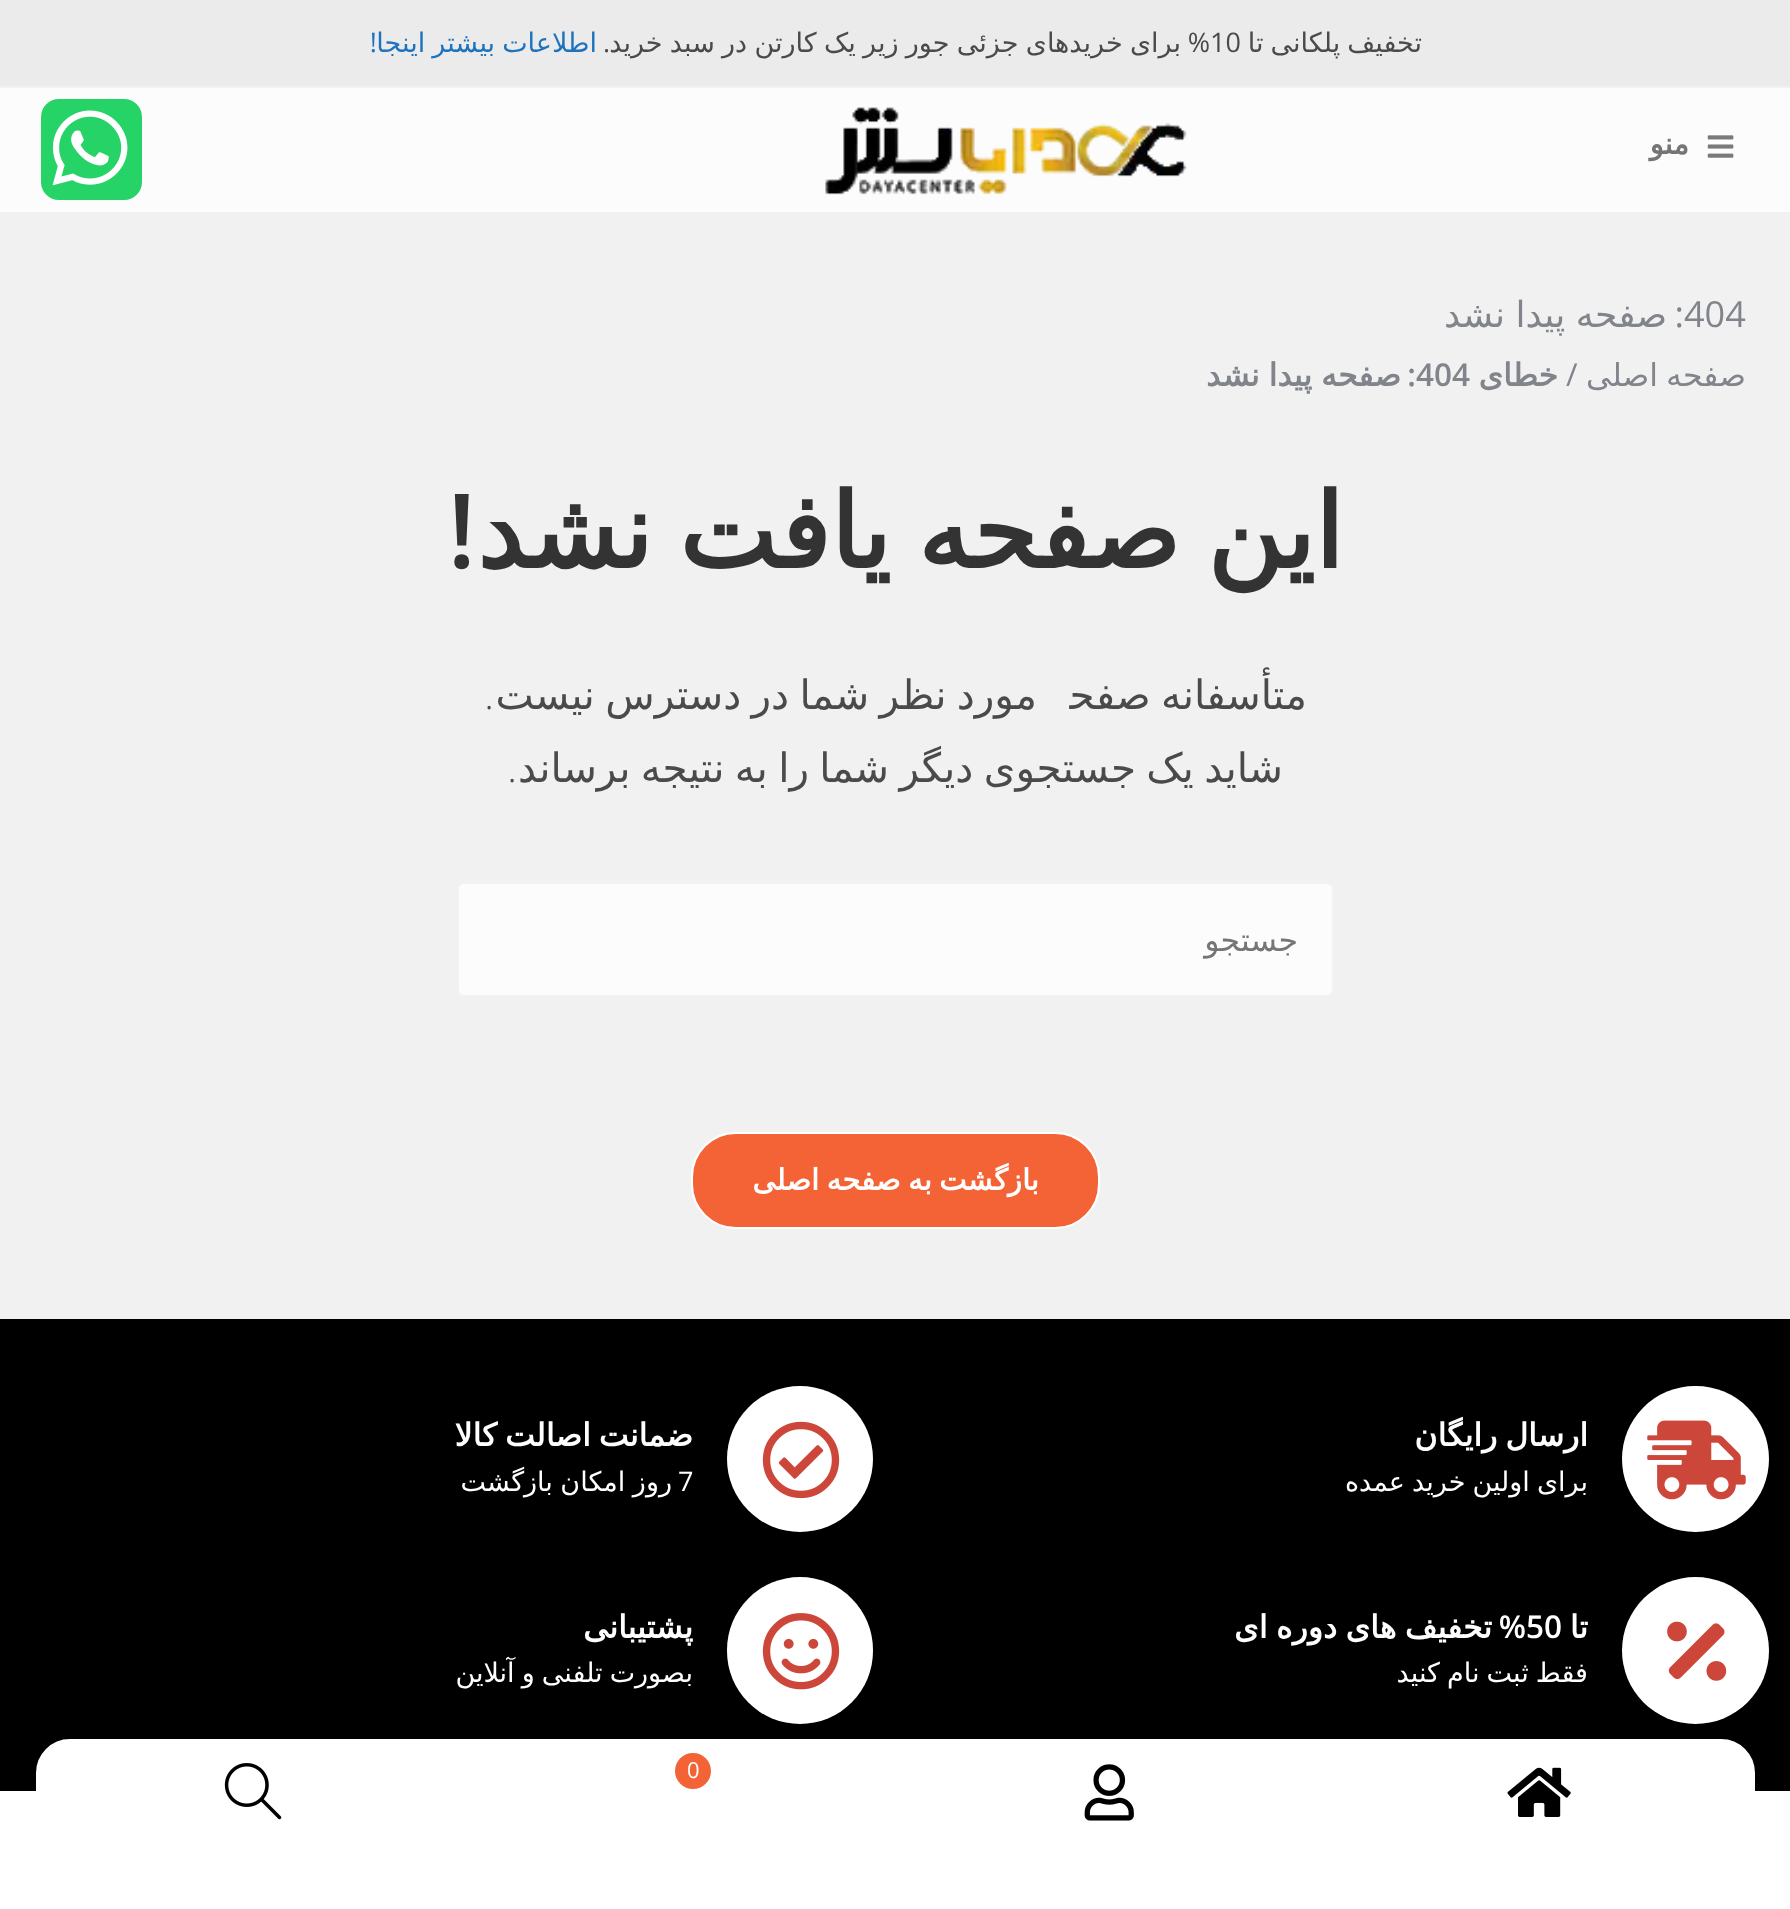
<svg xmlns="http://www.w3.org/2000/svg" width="1790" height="1909">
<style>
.a{font:27px DejaVu Sans;direction:rtl;fill:#4a4a4a}
.b{font:27px Open Sans;fill:#4a4a4a}
.c{font:27px Open Sans;direction:rtl;fill:#4a4a4a}
.d{font:27px DejaVu Sans;direction:rtl;fill:#1e73be}
.e{font:27px Open Sans;direction:rtl;fill:#1e73be}
.f{font:bold 29.25px DejaVu Sans;direction:rtl;fill:#757575}
.g{font:36px Open Sans;fill:#81858b}
.h{font:36px Open Sans;direction:rtl;fill:#81858b}
.i{font:36px DejaVu Sans;direction:rtl;fill:#81858b}
.j{font:31.5px DejaVu Sans;direction:rtl;fill:#81858b}
.k{font:31.5px Open Sans;fill:#81858b}
.l{font:bold 31.5px DejaVu Sans;direction:rtl;fill:#81858b}
.m{font:600 31.5px Open Sans;fill:#81858b}
.n{font:600 31.5px Open Sans;direction:rtl;fill:#81858b}
.o{font:bold 103.5px DejaVu Sans;direction:rtl;fill:#333}
.p{font:600 103.5px Open Sans;direction:rtl;fill:#333}
.q{font:40.5px DejaVu Sans;direction:rtl;fill:#4a4a4a}
.r{font:300 40.5px Open Sans;direction:rtl;fill:#4a4a4a}
.s{font:31.5px DejaVu Sans;direction:rtl;fill:#757575}
.t{font:bold 29.25px DejaVu Sans;direction:rtl;fill:#fff}
.u{font:bold 31.5px DejaVu Sans;direction:rtl;fill:#fff}
.v{font:27px DejaVu Sans;direction:rtl;fill:#fff}
.w{font:27px Open Sans;fill:#fff}
.x{font:600 31.5px Open Sans;fill:#fff}
.y{font:600 31.5px Open Sans;direction:rtl;fill:#fff}
.z{font:22px Open Sans;fill:#fff}
</style>
<rect width="100%" height="100%" fill="#f1f1f1"/>
<path fill="#ebebeb" d="M0 0h1790v86H0z"/>
<path fill="#fcfcfc" d="M0 88h1790v124H0z"/>
<image href="1.png" x="1707" y="135" width="27" height="23"/>
<image href="2.png" x="825" y="107" width="362" height="88"/>
<rect fill="#25d366" x="41" y="99" width="101" height="101" rx="18"/>
<image href="3.png" x="52" y="110" width="76" height="76"/>
<rect fill="#fcfcfc" stroke="#f2f2f2" stroke-width="2" x="458" y="883" width="875" height="113" rx="6"/>
<rect fill="#f36336" stroke="#fff" stroke-width="2" x="692" y="1133" width="407" height="95" rx="44"/>
<path fill="#fff" d="M0 1791h1790v118H0z"/>
<path fill="#000" d="M0 1319h1790v472H0z"/>
<rect fill="#fff" x="1622" y="1386" width="147" height="146" rx="73"/>
<image href="4.png" x="1647" y="1420" width="99" height="80"/>
<circle fill="#fff" cx="800" cy="1459" r="73"/>
<image href="5.png" x="762" y="1421" width="78" height="78"/>
<circle fill="#fff" cx="1695.5" cy="1650.5" r="73.5"/>
<image href="6.png" x="1667" y="1621" width="60" height="60"/>
<rect fill="#fff" x="727" y="1577" width="146" height="147" rx="73"/>
<image href="7.png" x="762" y="1613" width="78" height="77"/>
<rect fill="#fff" stroke="#fff" stroke-width="2" x="37" y="1740" width="1717" height="122" rx="33"/>
<image href="8.png" x="1507" y="1767" width="64" height="50"/>
<image href="9.png" x="1084" y="1764" width="50" height="57"/>
<circle fill="#f36336" cx="693" cy="1771" r="18"/>
<image href="10.png" x="224" y="1763" width="58" height="57"/>
<text class="a" x="1422" y="52" word-spacing="-1.5">تخفیف پلکانی تا</text>
<text class="b" x="1210" y="52">10</text>
<text class="c" x="1210" y="52">%</text>
<text class="a" x="1181" y="52" word-spacing="-1.25">برای خریدهای جزئی جور زیر یک کارتن در سبد خرید</text>
<text class="c" x="610" y="52">.</text>
<text class="d" x="597" y="52" word-spacing="-1.5">اطلاعات بیشتر اینجا</text>
<text class="e" x="377" y="52">!</text>
<text class="f" x="1689" y="154">منو</text>
<text class="g" x="1684" y="327">404</text>
<text class="h" x="1684" y="327">:</text>
<text class="i" x="1667" y="327" word-spacing="-1">صفحه پیدا نشد</text>
<text class="j" x="1746" y="386" word-spacing="-2">صفحه اصلی</text>
<text class="k" x="1566" y="386">/</text>
<text class="l" x="1558" y="386">خطای</text>
<text class="m" x="1416" y="386">404</text>
<text class="n" x="1416" y="386">:</text>
<text class="l" x="1401" y="386" word-spacing="-1">صفحه پیدا نشد</text>
<text class="o" x="1343" y="568" word-spacing="-6">این صفحه یافت نشد</text>
<text class="p" x="476" y="568">!</text>
<text class="q" x="1307" y="709" word-spacing="-2.5">متأسفانه صفح‍</text>
<text class="q" x="1037" y="709" word-spacing="-2.5">مورد نظر شما در دسترس نیست</text>
<text class="r" x="494" y="709">.</text>
<text class="q" x="1283" y="782" word-spacing="-2.5">شاید یک جستجوی دیگر شما را به نتیجه برساند</text>
<text class="r" x="517" y="782">.</text>
<text class="s" x="1298" y="951">جستجو</text>
<text class="t" x="1039" y="1190" word-spacing="-2">بازگشت به صفحه اصلی</text>
<text class="u" x="1588" y="1446" word-spacing="-2">ارسال رایگان</text>
<text class="v" x="1588" y="1491" word-spacing="-1.5">برای اولین خرید عمده</text>
<text class="u" x="693" y="1446" word-spacing="-2">ضمانت اصالت کالا</text>
<text class="w" x="678" y="1491">7</text>
<text class="v" x="672" y="1491" word-spacing="-1">روز امکان بازگشت</text>
<text class="u" x="1588" y="1638">تا</text>
<text class="x" x="1526" y="1638">50</text>
<text class="y" x="1526" y="1638">%</text>
<text class="u" x="1492" y="1638" word-spacing="-1.5">تخفیف های دوره ای</text>
<text class="v" x="1588" y="1682" word-spacing="-1.5">فقط ثبت نام کنید</text>
<text class="u" x="693" y="1638">پشتیبانی</text>
<text class="v" x="693" y="1682" word-spacing="-1.5">بصورت تلفنی و آنلاین</text>
<text class="z" x="687" y="1778">0</text>
</svg>
